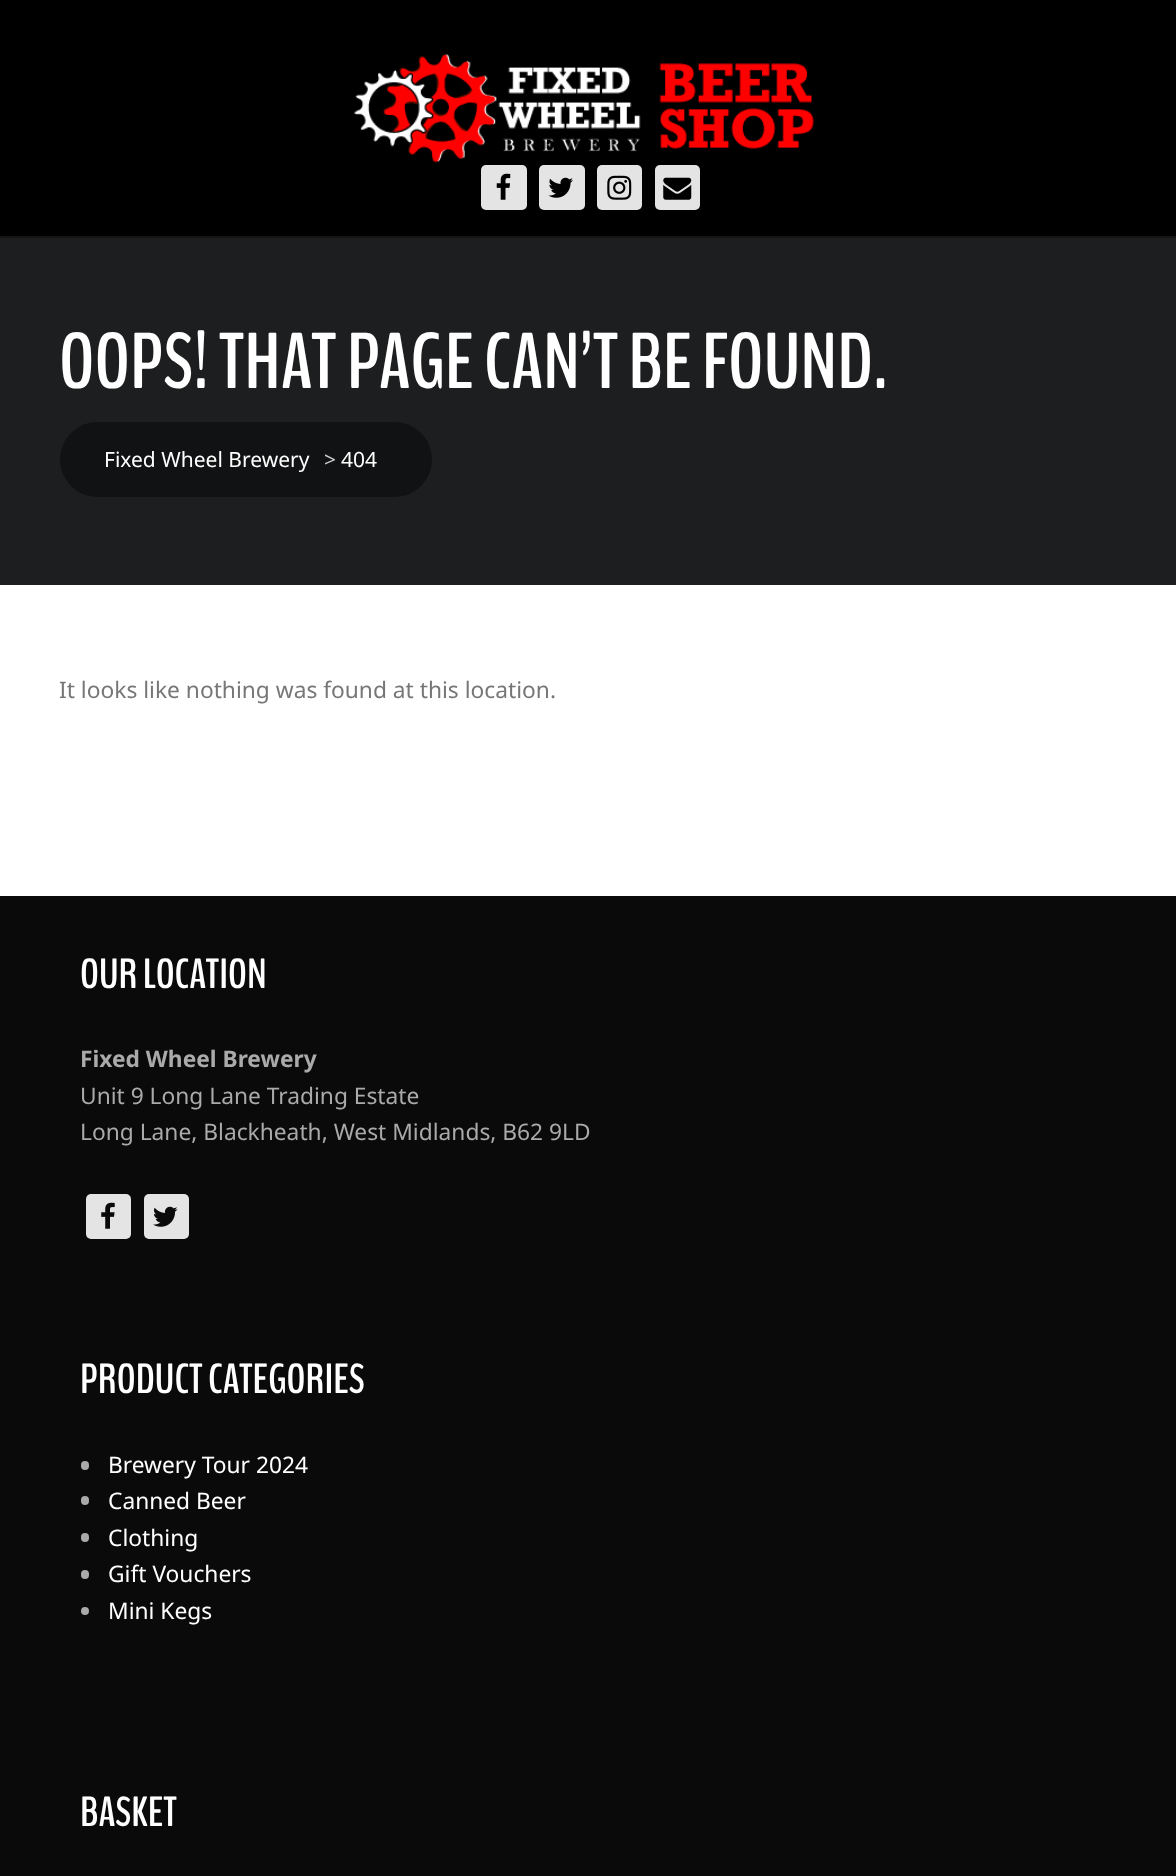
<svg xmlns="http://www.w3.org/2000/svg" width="1176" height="1876">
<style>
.a{font:bold 78.75px BenchNine;fill:#fff}
.b{font:21px Noto Sans;fill:#fff}
.c{font:21px Noto Sans;fill:#ccc}
.d{font:22.75px Noto Sans;fill:#777}
.e{font:bold 42px BenchNine;fill:#fff}
.f{font:bold 22.75px Noto Sans;fill:#aaa}
.g{font:22.75px Noto Sans;fill:#aaa}
.h{font:22.75px Noto Sans;fill:#fff}
</style>
<rect width="100%" height="100%" fill="#000"/>
<path fill="#141414" d="M0 236h1176v2H0z"/>
<image href="1.png" x="354" y="54" width="460" height="109"/>
<rect fill="#e5e4e4" x="481" y="165" width="46" height="45" rx="5"/>
<image href="2.png" x="496" y="173" width="15" height="27"/>
<rect fill="#e5e4e4" x="539" y="165" width="46" height="45" rx="5"/>
<image href="3.png" x="548" y="177" width="25" height="21"/>
<rect fill="#e5e4e4" x="597" y="165" width="45" height="45" rx="5"/>
<image href="4.png" x="607" y="175" width="25" height="25"/>
<rect fill="#e5e4e4" x="655" y="165" width="45" height="45" rx="5"/>
<image href="5.png" x="663" y="177" width="29" height="23"/>
<path fill="#1d1e1f" d="M0 238h1176v347H0z"/>
<rect fill="#111213" x="60" y="422" width="372" height="75" rx="37.5"/>
<path fill="#fff" d="M0 585h1176v311H0z"/>
<path fill="#0a0a0a" d="M0 896h1176v980H0z"/>
<rect fill="#e5e4e4" x="86" y="1194" width="45" height="45" rx="5"/>
<image href="6.png" x="101" y="1202" width="14" height="27"/>
<rect fill="#e5e4e4" x="144" y="1194" width="45" height="45" rx="5"/>
<image href="7.png" x="153" y="1206" width="25" height="21"/>
<rect fill="#aaa" x="81" y="1461" width="8" height="9" rx="4"/>
<rect fill="#aaa" x="81" y="1496" width="8" height="9" rx="4"/>
<rect fill="#aaa" x="81" y="1533" width="8" height="9" rx="4"/>
<rect fill="#aaa" x="81" y="1570" width="8" height="9" rx="4"/>
<circle fill="#aaa" cx="85" cy="1611" r="4"/>
<text class="a" x="59" y="388">OOPS! THAT PAGE CAN’T BE FOUND.</text>
<text class="b" x="104" y="467">Fixed Wheel Brewery</text>
<text class="c" x="324" y="467">&gt;</text>
<text class="b" x="341" y="467">404</text>
<text class="d" x="59" y="698">It looks like nothing was found at this location.</text>
<text class="e" x="80" y="988">OUR LOCATION</text>
<text class="f" x="80" y="1067">Fixed Wheel Brewery</text>
<text class="g" x="80" y="1104">Unit 9 Long Lane Trading Estate</text>
<text class="g" x="80" y="1140">Long Lane, Blackheath, West Midlands, B62 9LD</text>
<text class="e" x="80" y="1393">PRODUCT CATEGORIES</text>
<text class="h" x="108" y="1473">Brewery Tour 2024</text>
<text class="h" x="108" y="1509">Canned Beer</text>
<text class="h" x="108" y="1546">Clothing</text>
<text class="h" x="108" y="1582">Gift Vouchers</text>
<text class="h" x="108" y="1619">Mini Kegs</text>
<text class="e" x="80" y="1826">BASKET</text>
</svg>
